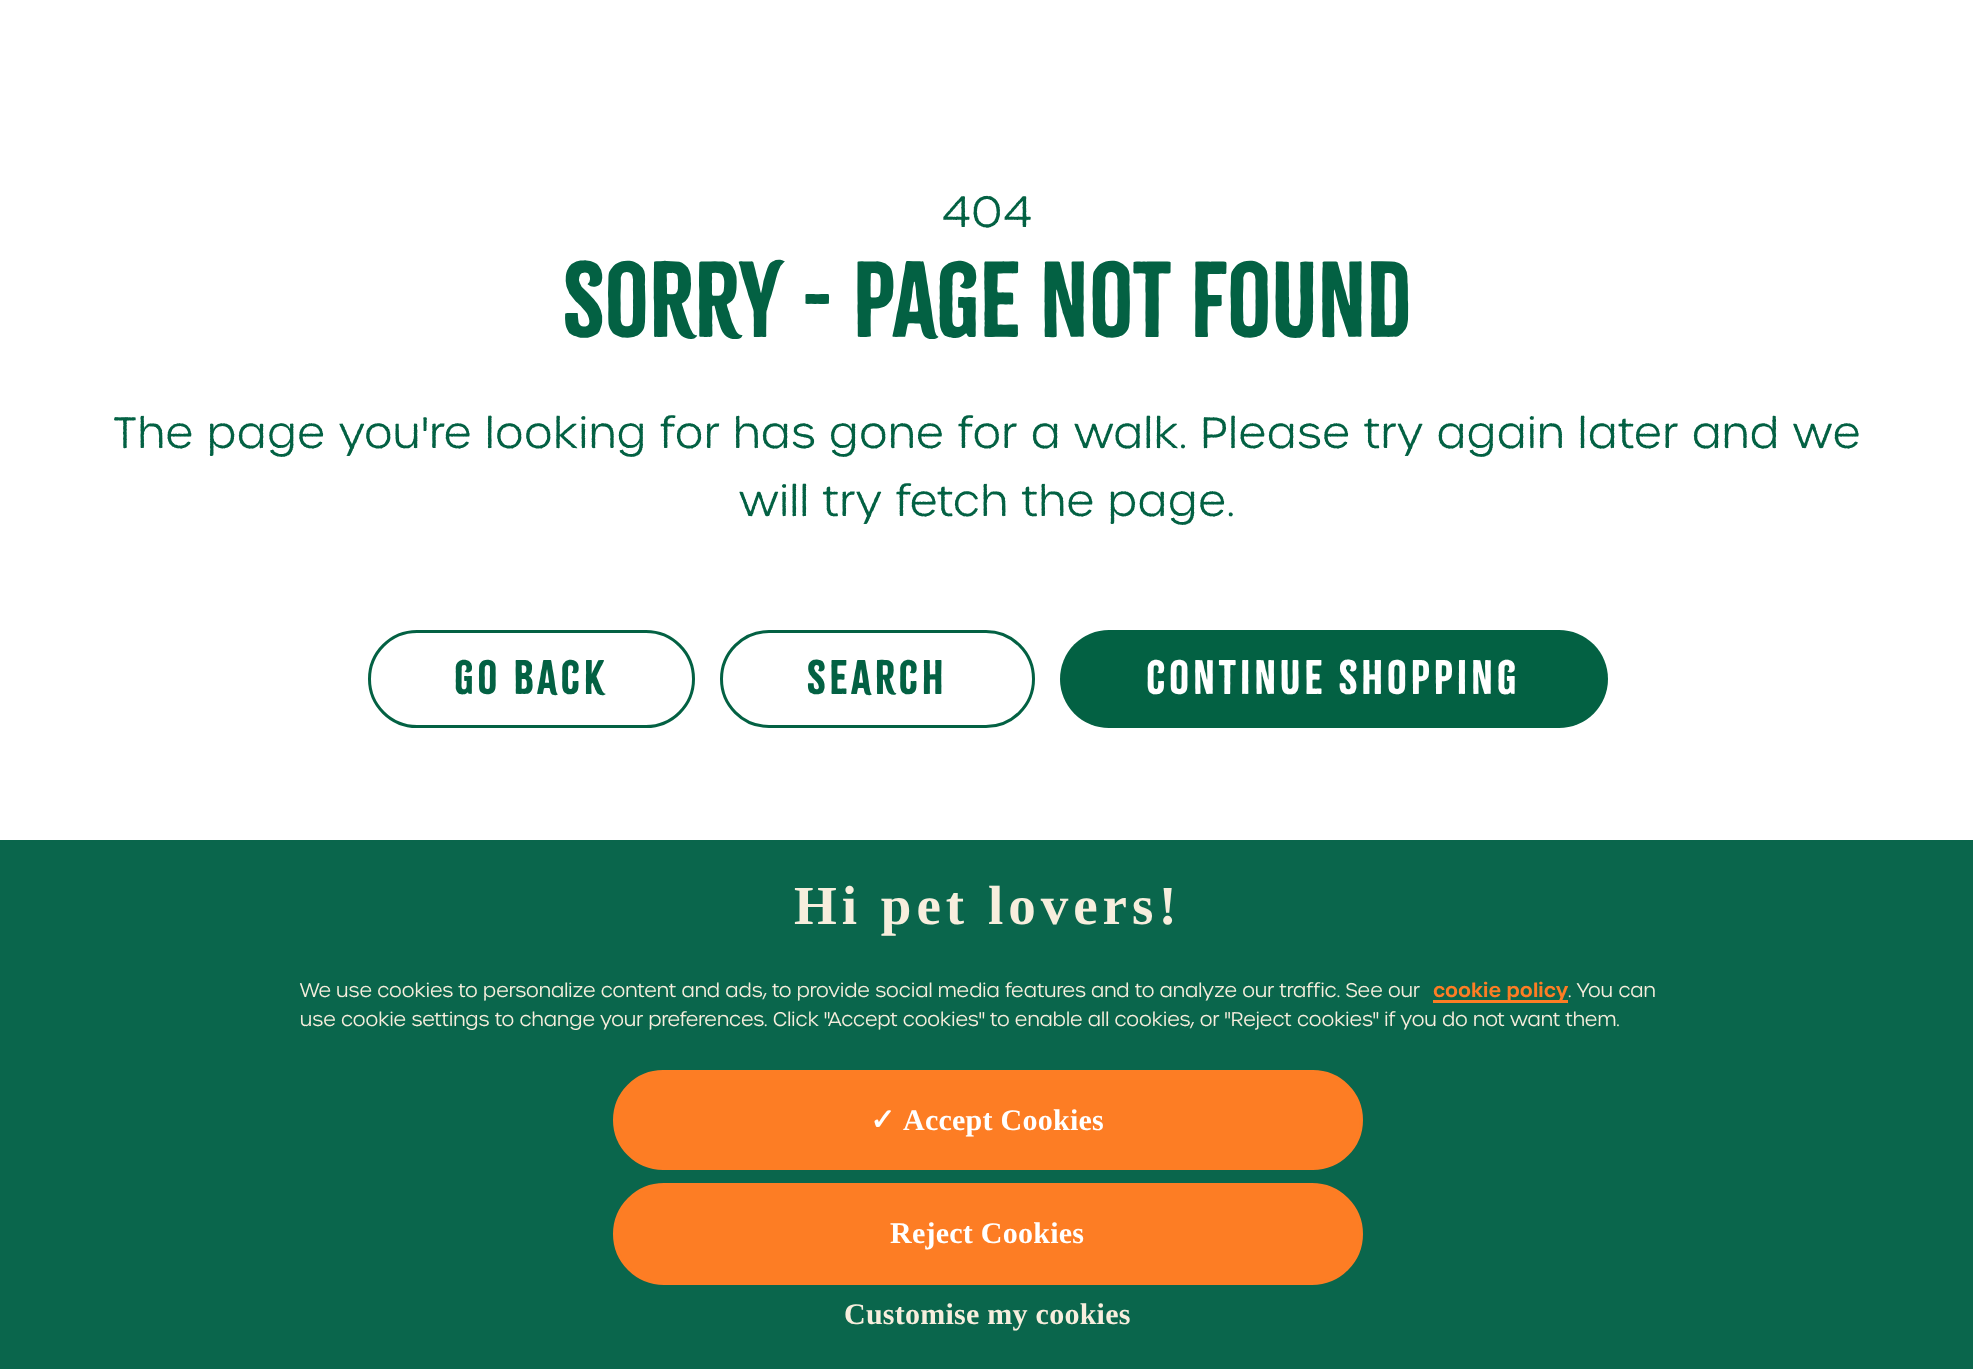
<svg xmlns="http://www.w3.org/2000/svg" width="1973" height="1369">
<style>
.a{font:300 42.5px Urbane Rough;letter-spacing:0.85px;fill:#036143}
.b{font:94.5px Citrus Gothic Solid;fill:#036143}
.c{font:42.5px Citrus Gothic Solid;letter-spacing:3.8px;fill:#036143}
.d{font:42.5px Citrus Gothic Solid;letter-spacing:3.8px;fill:#fff}
.e{font:bold 55px Liberation Serif;letter-spacing:5px;fill:#f7eedd}
.f{font:300 19.2px Urbane Rough;fill:#f7eedd}
.g{font:600 19.2px Urbane Rough;fill:#fd7d24}
.h{font:bold 30px DejaVu Sans;letter-spacing:0.25px;fill:#fff}
.i{font:bold 30px Liberation Serif;letter-spacing:0.25px;fill:#fff}
.j{font:bold 30px Liberation Serif;letter-spacing:0.25px;fill:#f7eedd}
</style>
<rect width="100%" height="100%" fill="#fff"/>
<rect fill="none" stroke="#036143" stroke-width="3" x="369.5" y="631.5" width="324" height="95" rx="47.5"/>
<rect fill="none" stroke="#036143" stroke-width="3" x="721.5" y="631.5" width="312" height="95" rx="47.5"/>
<rect fill="#036143" x="1060" y="630" width="548" height="98" rx="49"/>
<path fill="#0a664c" d="M0 840h1973v529H0z"/>
<path fill="#fd7d24" d="M1433 1000h135v3H1433z"/>
<rect fill="#fd7d24" stroke="#fd7d24" stroke-width="3" x="614.5" y="1071.5" width="747" height="97" rx="48.5"/>
<rect fill="#fd7d24" stroke="#fd7d24" stroke-width="3" x="614.5" y="1184.5" width="747" height="99" rx="49.5"/>
<text class="a" x="942" y="227">404</text>
<text class="b" x="563" y="337">Sorry - Page not found</text>
<text class="a" x="113" y="448">The page you're looking for has gone for a walk. Please try again later and we</text>
<text class="a" x="739" y="516">will try fetch the page.</text>
<text class="c" x="454" y="694">GO BACK</text>
<text class="c" x="807" y="694">SEARCH</text>
<text class="d" x="1146" y="694">CONTINUE SHOPPING</text>
<text class="e" x="794" y="924">Hi pet lovers!</text>
<text class="f" x="300" y="997" word-spacing="-0.2">We use cookies to personalize content and ads, to provide social media features and to analyze our traffic. See our</text>
<text class="g" x="1433" y="997">cookie policy</text>
<text class="f" x="1568" y="997">. You can</text>
<text class="f" x="300" y="1026" word-spacing="-0.2">use cookie settings to change your preferences. Click "Accept cookies" to enable all cookies, or "Reject cookies" if you do not want them.</text>
<text class="h" x="870" y="1130">✓</text>
<text class="i" x="903" y="1130">Accept Cookies</text>
<text class="i" x="890" y="1243">Reject Cookies</text>
<text class="j" x="844" y="1324">Customise my cookies</text>
</svg>
